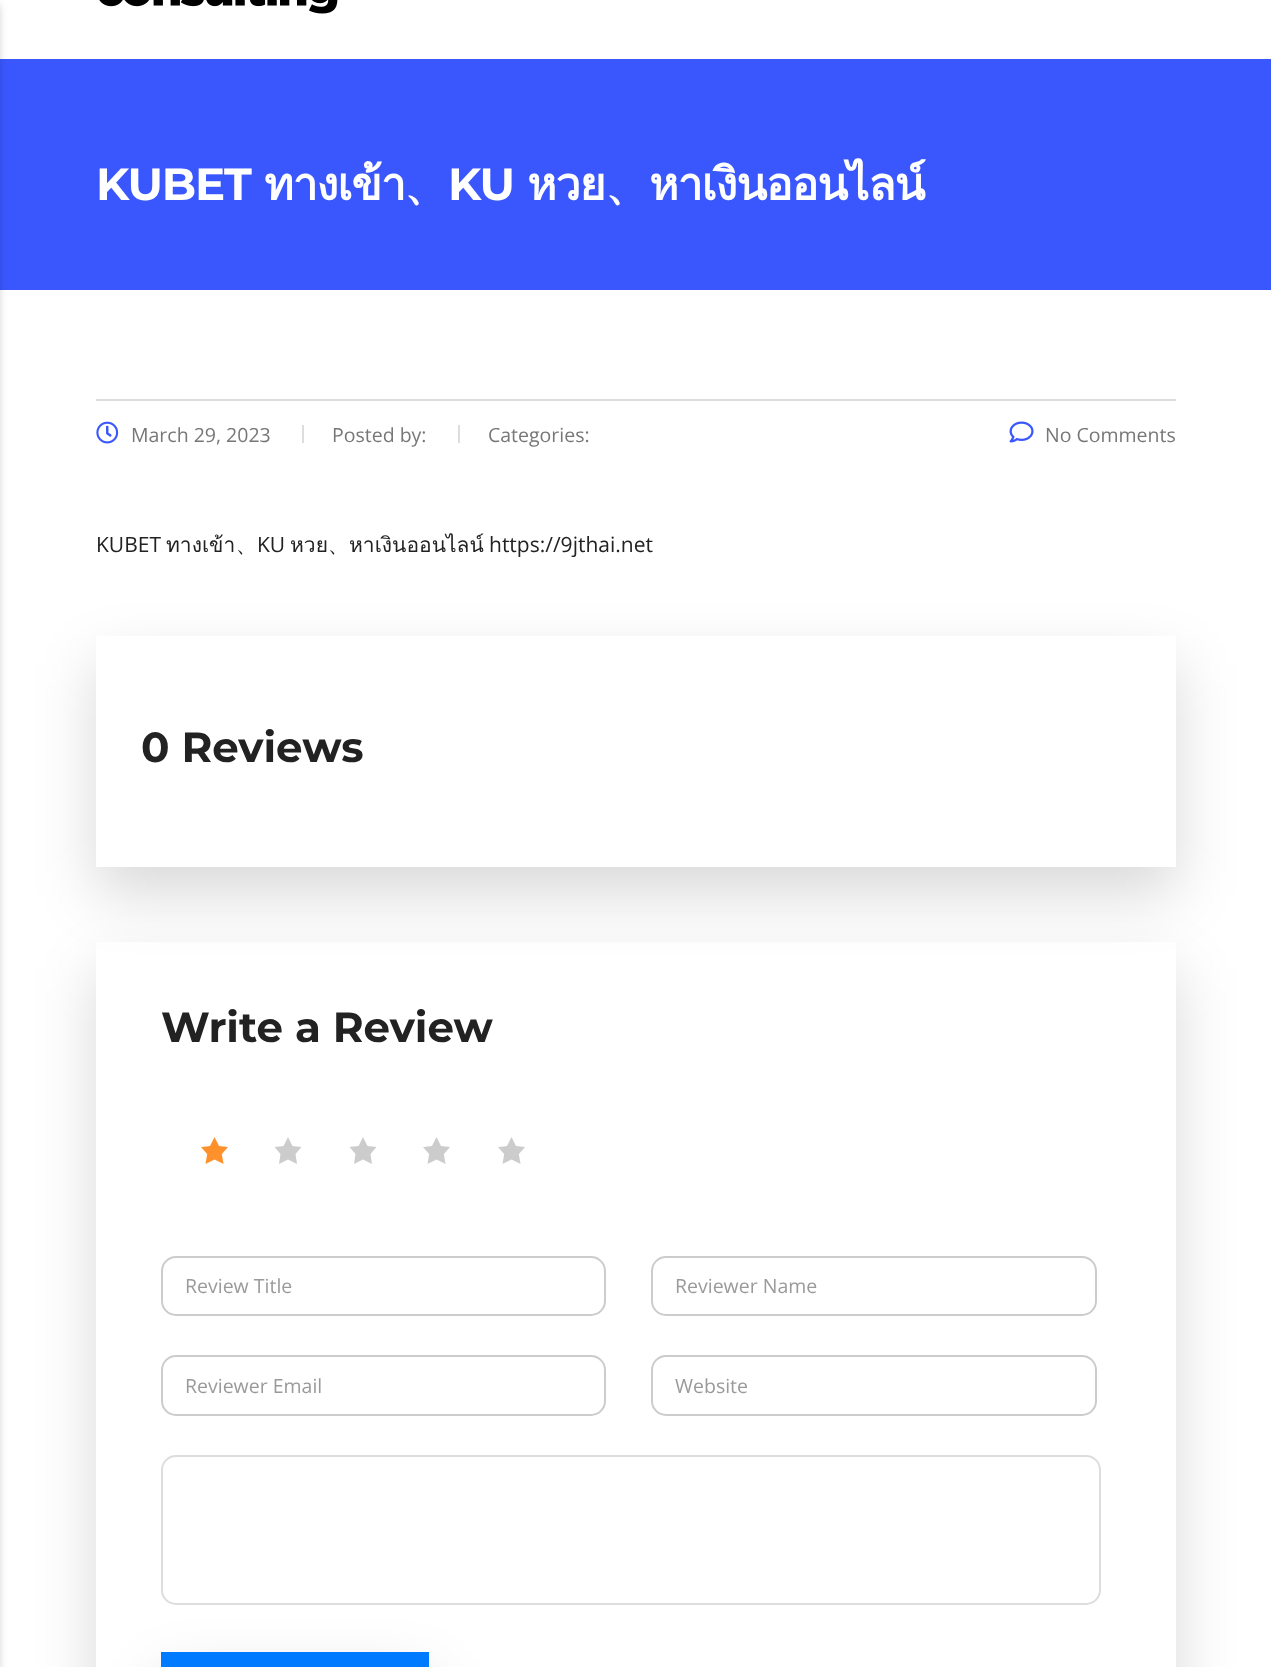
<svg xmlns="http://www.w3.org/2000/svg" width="1271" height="1667">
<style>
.a{font:bold 45px Montserrat;letter-spacing:-1.25px;fill:#fff}
.b{font:bold 45px Loma;letter-spacing:-1.25px;fill:#fff}
.c{font:bold 45px WenQuanYi Zen Hei;letter-spacing:-1.25px;fill:#fff}
.d{font:19.5px Open Sans;fill:#777}
.e{font:21px Open Sans;fill:#222}
.f{font:21px Loma;fill:#222}
.g{font:500 21px WenQuanYi Zen Hei;fill:#222}
.h{font:bold 42px Montserrat;fill:#222}
.i{font:19.5px Open Sans;fill:#9a9a9a}
</style>
<defs>
<clipPath id="clip1"><path d="M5 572h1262v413h-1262zm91 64h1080v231h-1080z" clip-rule="evenodd"/></clipPath>
<clipPath id="clip2"><path d="M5 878h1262v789h-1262zm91 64h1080v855h-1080z" clip-rule="evenodd"/></clipPath>
</defs>
<rect width="100%" height="100%" fill="#fff"/>
<path fill="#3a57fe" d="M0 59h1271v231H0z"/>
<path fill="#00000033" filter="blur(4px)" d="M-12 5h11v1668H-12z"/>
<image href="1.png" x="99" y="0" width="239" height="14"/>
<path fill="#ddd" d="M96 399h1080v2H96z"/>
<image href="2.png" x="96" y="421" width="23" height="23"/>
<path fill="#ddd" d="M302 425h2v18H302z"/>
<path fill="#ddd" d="M458 425h2v18H458z"/>
<image href="3.png" x="1009" y="421" width="25" height="22"/>
<g clip-path="url(#clip1)">
<path fill="#0a000026" filter="blur(30px)" d="M96 663h1080v231H96z"/>
</g>
<g clip-path="url(#clip2)">
<path fill="#0a000026" filter="blur(30px)" d="M96 969h1080v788H96z"/>
</g>
<image href="4.png" x="201" y="1137" width="27" height="27"/>
<path fill="#ccc" d="M288 1137l4.5 9l9 1l-6 7l1.5 10l-9-4.5l-9 4.5l1.5-10l-6-7l9-1z"/>
<path fill="#ccc" d="M363 1137l4.5 9l9 1l-6 7l1.5 10l-9-4.5l-9 4.5l1.5-10l-6-7l9-1z"/>
<image href="5.png" x="423" y="1137" width="27" height="27"/>
<image href="5.png" x="498" y="1137" width="27" height="27"/>
<rect fill="none" stroke="#ccc" stroke-width="2" x="162" y="1257" width="443" height="58" rx="14"/>
<rect fill="none" stroke="#ccc" stroke-width="2" x="652" y="1257" width="444" height="58" rx="14"/>
<rect fill="none" stroke="#ccc" stroke-width="2" x="162" y="1356" width="443" height="59" rx="14"/>
<rect fill="none" stroke="#ccc" stroke-width="2" x="652" y="1356" width="444" height="59" rx="14"/>
<rect fill="none" stroke="#ddd" stroke-width="2" x="162" y="1456" width="938" height="148" rx="14"/>
<path fill="#0a000026" filter="blur(30px)" d="M161 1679h268v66H161z"/>
<path fill="#007bff" d="M161 1652h268v15H161z"/>
<text class="a" x="96" y="200">KUBET</text>
<text class="b" x="264" y="200">ทางเข้า</text>
<text class="c" x="404" y="200">、</text>
<text class="a" x="448" y="200">KU</text>
<text class="b" x="527" y="200">หวย</text>
<text class="c" x="605" y="200">、</text>
<text class="b" x="649" y="200">หาเงินออนไลน์</text>
<text class="d" x="131" y="442">March 29, 2023</text>
<text class="d" x="332" y="442">Posted by:</text>
<text class="d" x="488" y="442">Categories:</text>
<text class="d" x="1045" y="442">No Comments</text>
<text class="e" x="96" y="552">KUBET</text>
<text class="f" x="166" y="552">ทางเข้า</text>
<text class="g" x="236" y="552">、</text>
<text class="e" x="257" y="552">KU</text>
<text class="f" x="290" y="552">หวย</text>
<text class="g" x="328" y="552">、</text>
<text class="f" x="349" y="552">หาเงินออนไลน์</text>
<text class="e" x="489" y="552">https://9jthai.net</text>
<text class="h" x="141" y="762">0 Reviews</text>
<text class="h" x="161" y="1042">Write a Review</text>
<text class="i" x="185" y="1293">Review Title</text>
<text class="i" x="675" y="1293">Reviewer Name</text>
<text class="i" x="185" y="1393">Reviewer Email</text>
<text class="i" x="675" y="1393">Website</text>
</svg>
